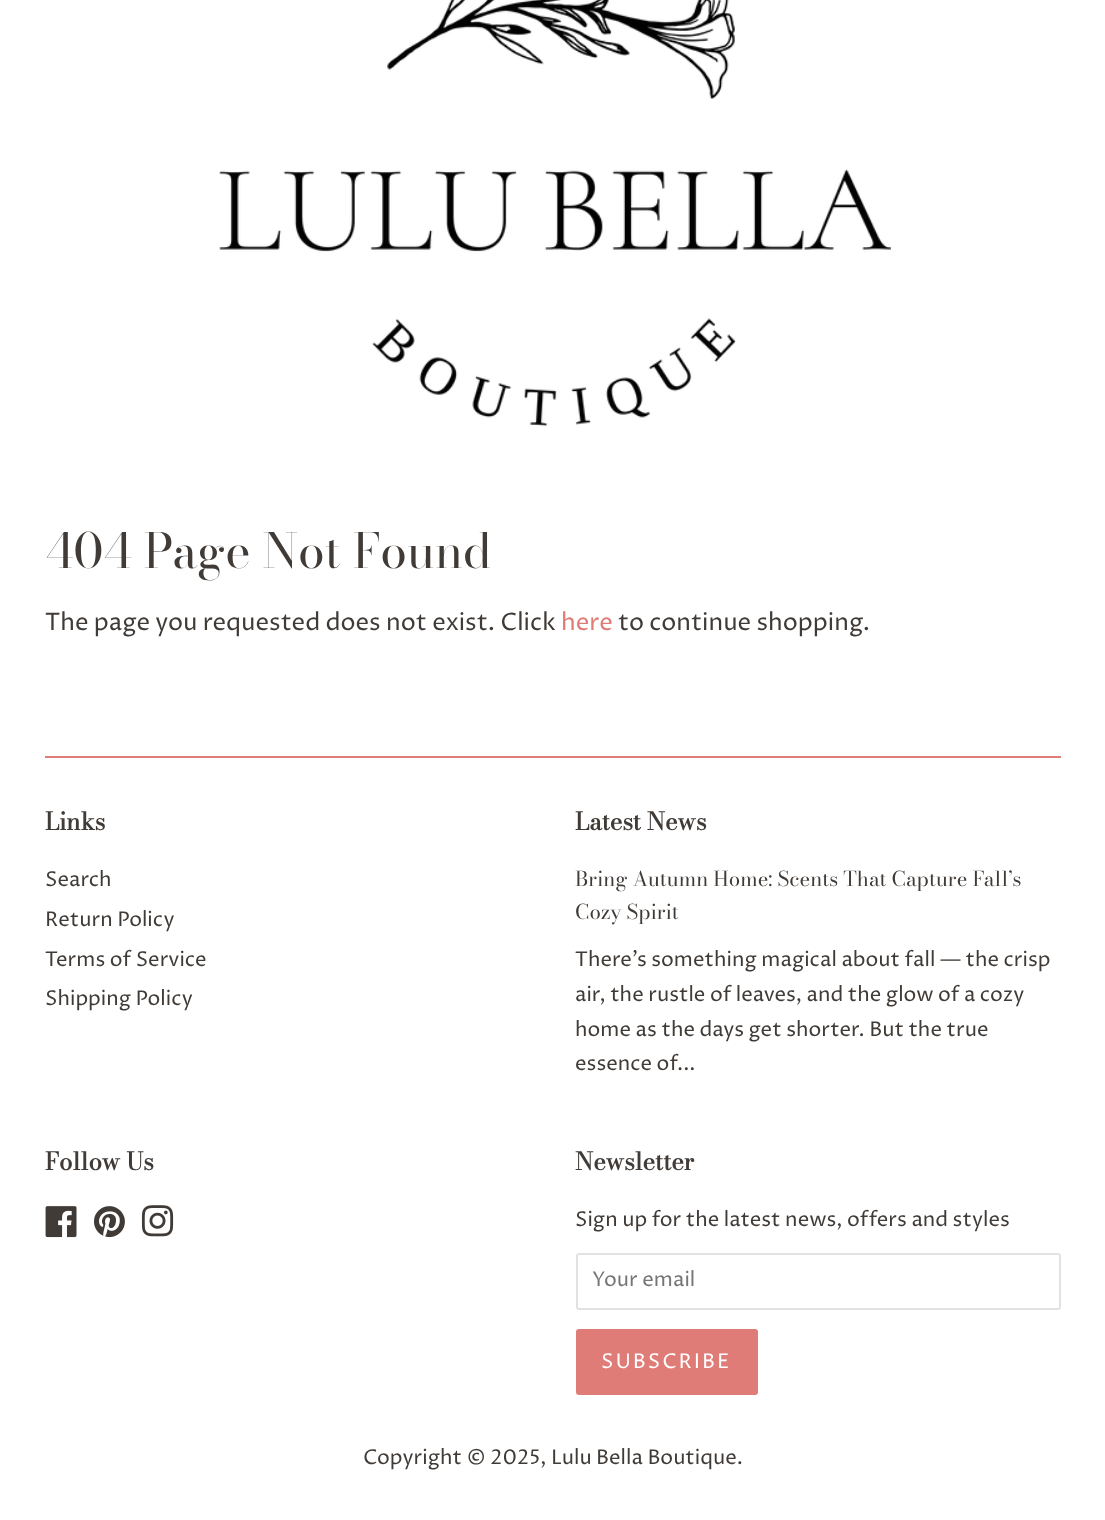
<svg xmlns="http://www.w3.org/2000/svg" width="1105" height="1520">
<style>
.a{font:48px Bodoni Moda;fill:#403b37}
.b{font:24px Proza Libre;fill:#403b37}
.c{font:24px Proza Libre;fill:#df7c77}
.d{font:bold 24px Bodoni Moda;fill:#403b37}
.e{font:20.4px Proza Libre;fill:#403b37}
.f{font:20.4px 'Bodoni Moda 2';fill:#403b37}
.g{font:20.4px Proza Libre;fill:#757575}
.h{font:20.4px Proza Libre;letter-spacing:2px;fill:#fff}
</style>
<rect width="100%" height="100%" fill="#fff"/>
<image href="1.png" x="219" y="0" width="672" height="427"/>
<path fill="#df7c77" d="M45 756h1016v2H45z"/>
<image href="2.png" x="45" y="1206" width="32" height="32"/>
<image href="3.png" x="94" y="1206" width="31" height="32"/>
<image href="4.png" x="141" y="1205" width="33" height="32"/>
<rect fill="none" stroke="#e2e2e1" stroke-width="2" x="577" y="1254" width="483" height="55" rx="2"/>
<rect fill="#df7c77" x="576" y="1329" width="182" height="66" rx="3"/>
<text class="a" x="45" y="568">404 Page Not Found</text>
<text class="b" x="45" y="630">The page you requested does not exist. Click</text>
<text class="c" x="561" y="630">here</text>
<text class="b" x="618" y="630">to continue shopping.</text>
<text class="d" x="45" y="830">Links</text>
<text class="e" x="45" y="886">Search</text>
<text class="e" x="45" y="926">Return Policy</text>
<text class="e" x="45" y="966">Terms of Service</text>
<text class="e" x="45" y="1005">Shipping Policy</text>
<text class="d" x="575" y="830">Latest News</text>
<text class="f" x="575" y="886">Bring Autumn Home: Scents That Capture Fall’s</text>
<text class="f" x="575" y="919">Cozy Spirit</text>
<text class="e" x="575" y="966">There’s something magical about fall — the crisp</text>
<text class="e" x="575" y="1001">air, the rustle of leaves, and the glow of a cozy</text>
<text class="e" x="575" y="1036">home as the days get shorter. But the true</text>
<text class="e" x="575" y="1070">essence of...</text>
<text class="d" x="45" y="1170">Follow Us</text>
<text class="d" x="575" y="1170">Newsletter</text>
<text class="e" x="575" y="1226">Sign up for the latest news, offers and styles</text>
<text class="g" x="592" y="1286">Your email</text>
<text class="h" x="601" y="1368">SUBSCRIBE</text>
<text class="e" x="363" y="1464">Copyright © 2025, Lulu Bella Boutique.</text>
</svg>
